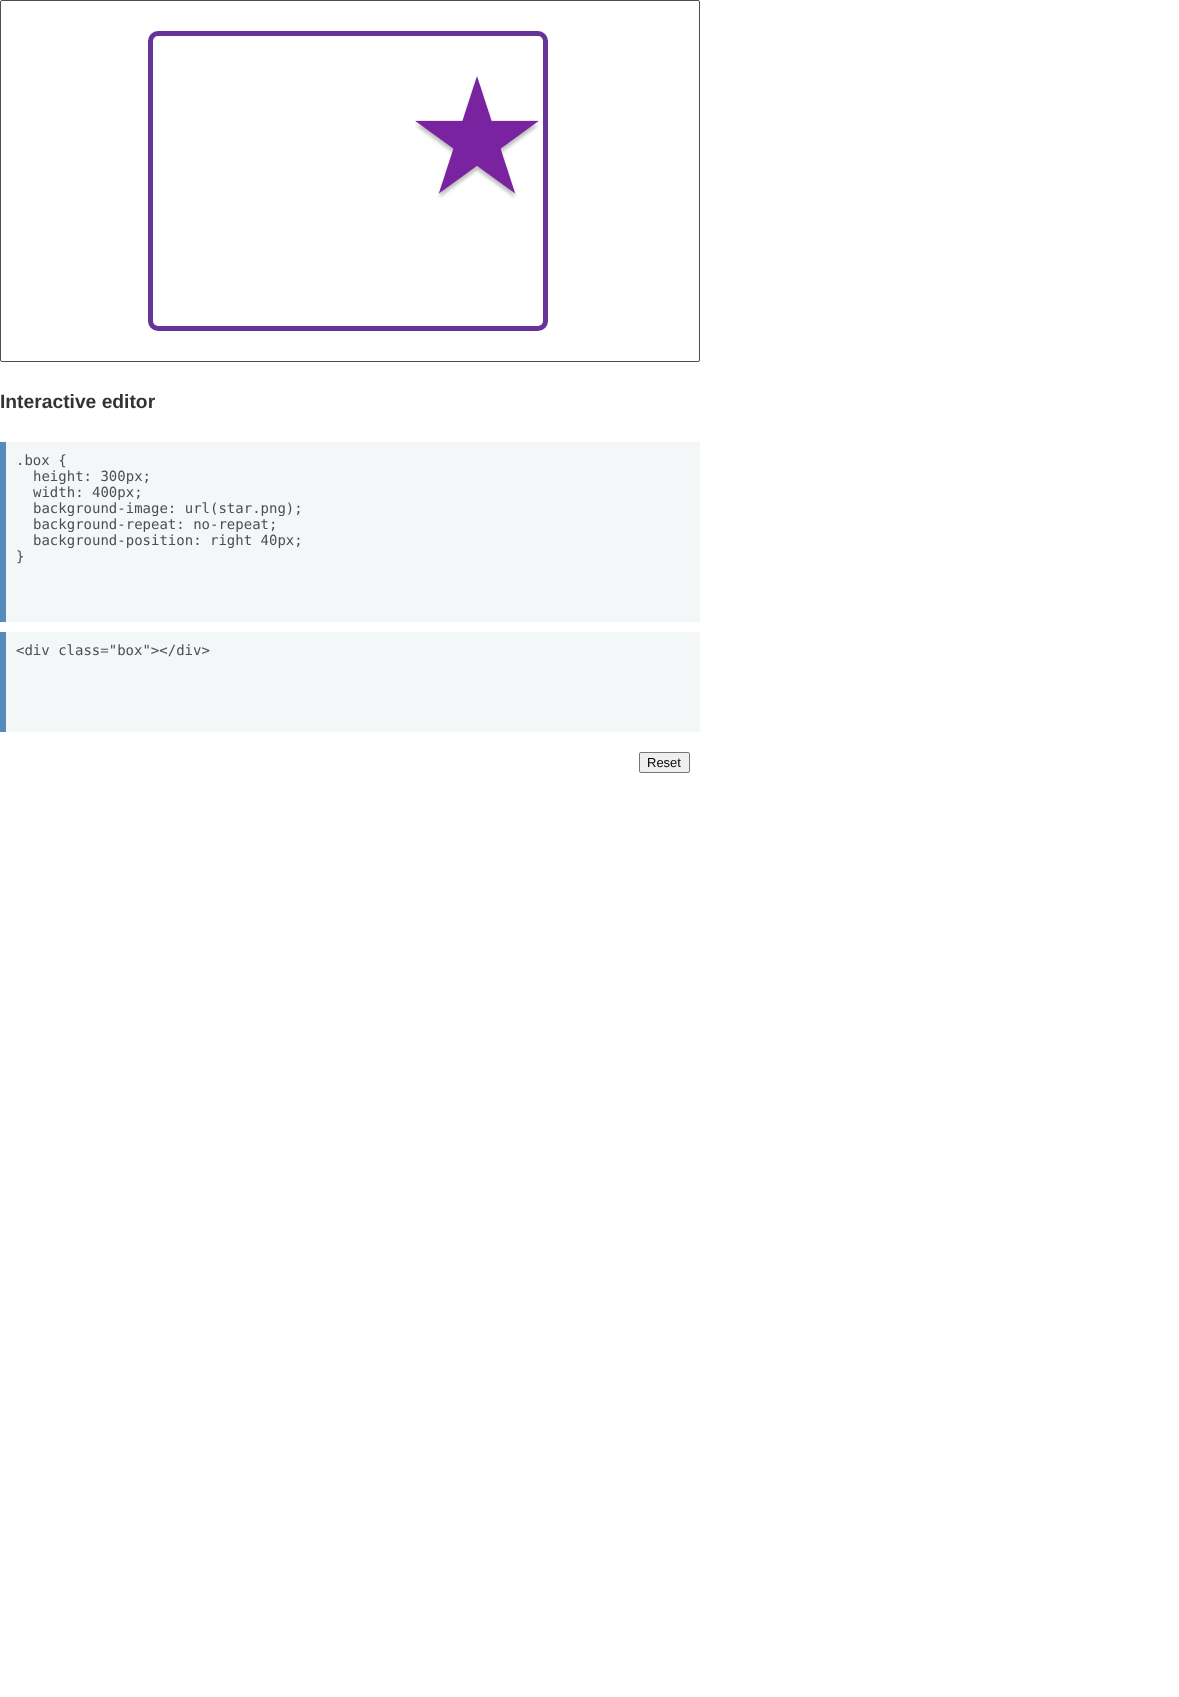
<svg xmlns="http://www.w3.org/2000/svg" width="1179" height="1697">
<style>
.a{font:bold 19.25px Liberation Sans;fill:#333}
.b{font:14px DejaVu Sans Mono;fill:#4d4e53}
.c{font:13px Liberation Sans;fill:#000}
</style>
<rect width="100%" height="100%" fill="#fff"/>
<rect fill="none" stroke="#4d4e53" x="0.5" y="0.5" width="699" height="361" rx="1.5"/>
<image href="1.png" x="415" y="76" width="124" height="123"/>
<rect fill="none" stroke="#639" stroke-width="5" x="150.5" y="33.5" width="395" height="295" rx="7.5"/>
<path fill="#f4f7f8" d="M6 442h694v180H6z"/>
<path fill="#558abb" d="M0 442h6v180H0z"/>
<path fill="#f4f7f8" d="M6 632h694v100H6z"/>
<path fill="#558abb" d="M0 632h6v100H0z"/>
<rect fill="#efefef" stroke="#767676" x="639.5" y="752.5" width="50" height="20" rx="1.5"/>
<text class="a" x="0" y="408">Interactive editor</text>
<text class="b" x="16" y="465">.box {</text>
<text class="b" x="33" y="481">height: 300px;</text>
<text class="b" x="33" y="497">width: 400px;</text>
<text class="b" x="33" y="513">background-image: url(star.png);</text>
<text class="b" x="33" y="529">background-repeat: no-repeat;</text>
<text class="b" x="33" y="545">background-position: right 40px;</text>
<text class="b" x="16" y="561">}</text>
<text class="b" x="16" y="655">&lt;div class="box"&gt;&lt;/div&gt;</text>
<text class="c" x="647" y="767">Reset</text>
</svg>
